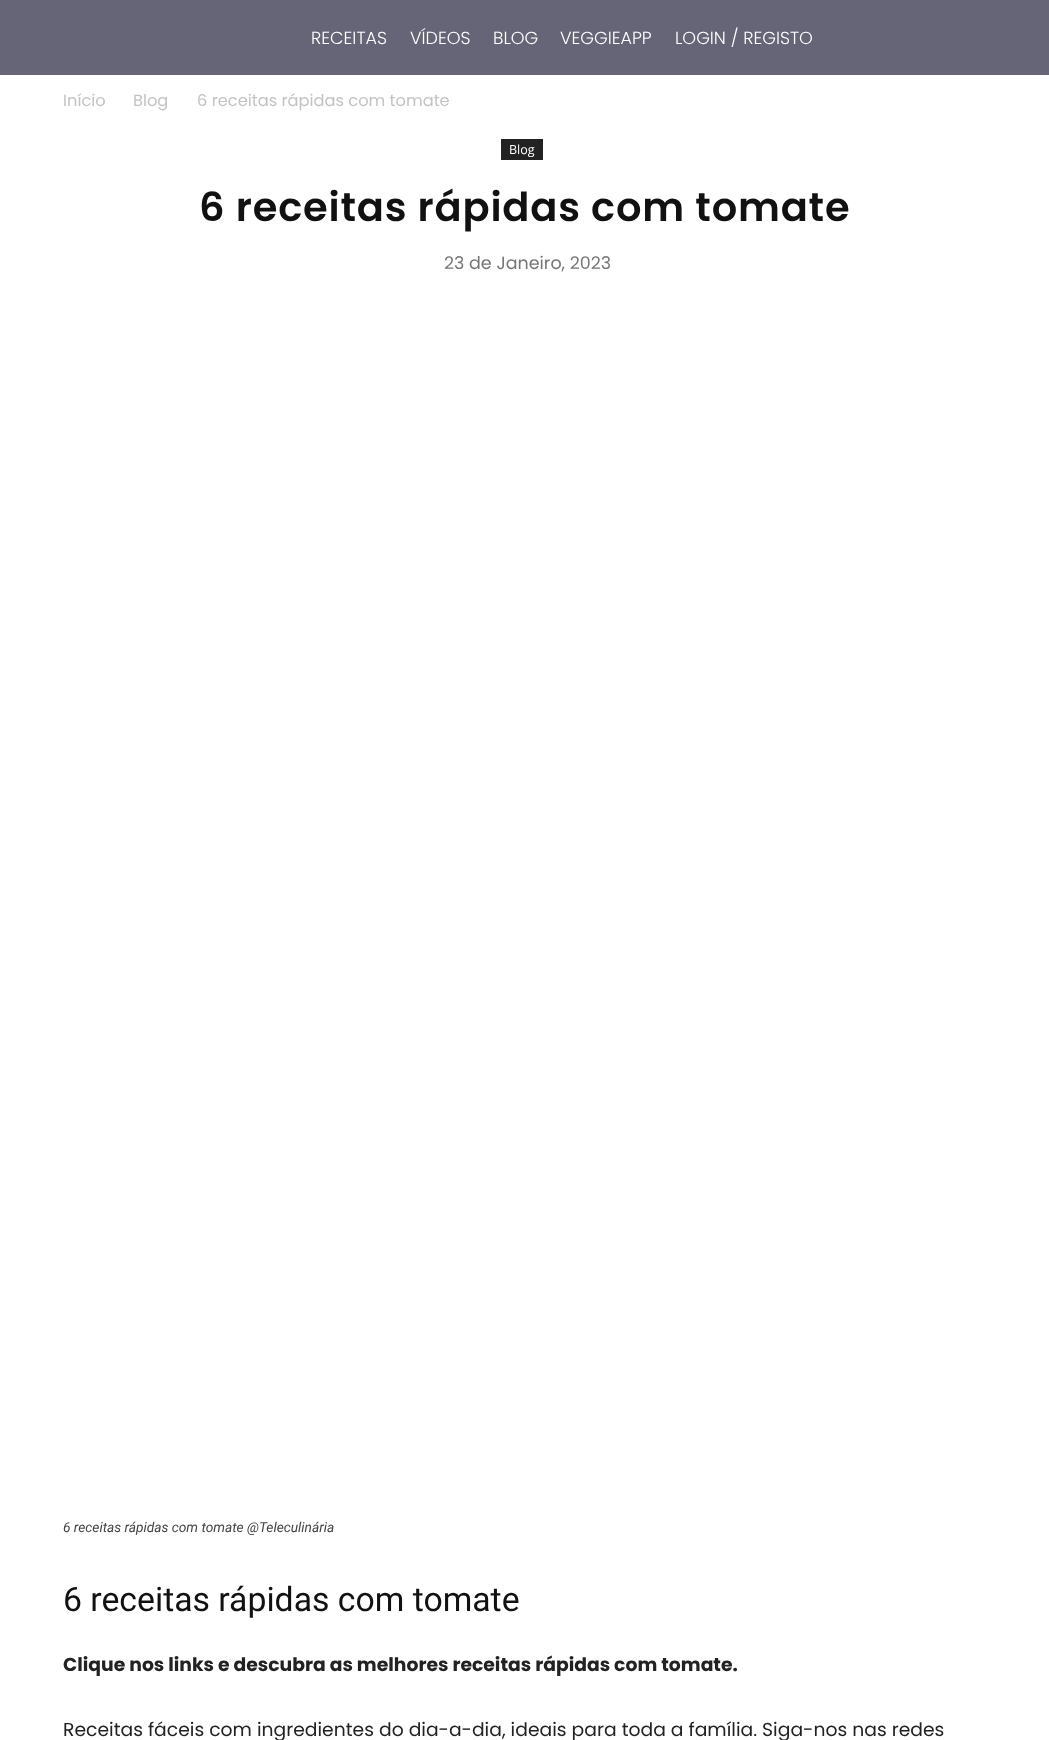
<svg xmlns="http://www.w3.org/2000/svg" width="1049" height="1740">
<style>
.a{font:300 17.5px Poppins;fill:#fff}
.b{font:16.25px Poppins;fill:#c3c3c3}
.c{font:12.5px Open Sans;fill:#fff}
.d{font:600 40px Poppins;letter-spacing:0.8px;fill:#111}
.e{font:17.5px Poppins;fill:#767676}
.f{font:italic 13.75px Roboto;fill:#444}
.g{font:33.75px Roboto;fill:#111}
.h{font:bold 18.75px Poppins;fill:#222}
.i{font:18.75px Poppins;fill:#222}
</style>
<rect width="100%" height="100%" fill="#fff"/>
<path fill="#656577" d="M0 0h1049v75H0z"/>
<path fill="#222" d="M501 139h42v21H501z"/>
<text class="a" x="311" y="44">RECEITAS</text>
<text class="a" x="410" y="44">VÍDEOS</text>
<text class="a" x="493" y="44">BLOG</text>
<text class="a" x="560" y="44">VEGGIEAPP</text>
<text class="a" x="675" y="44">LOGIN / REGISTO</text>
<text class="b" x="63" y="106">Início</text>
<text class="b" x="133" y="106">Blog</text>
<text class="b" x="197" y="106">6 receitas rápidas com tomate</text>
<text class="c" x="509" y="154">Blog</text>
<text class="d" x="199" y="221">6 receitas rápidas com tomate</text>
<text class="e" x="444" y="269">23 de Janeiro, 2023</text>
<text class="f" x="63" y="1532">6 receitas rápidas com tomate @Teleculinária</text>
<text class="g" x="63" y="1611">6 receitas rápidas com tomate</text>
<text class="h" x="63" y="1671">Clique nos links e descubra as melhores receitas rápidas com tomate.</text>
<text class="i" x="63" y="1736">Receitas fáceis com ingredientes do dia-a-dia, ideais para toda a família. Siga-nos nas redes</text>
</svg>
